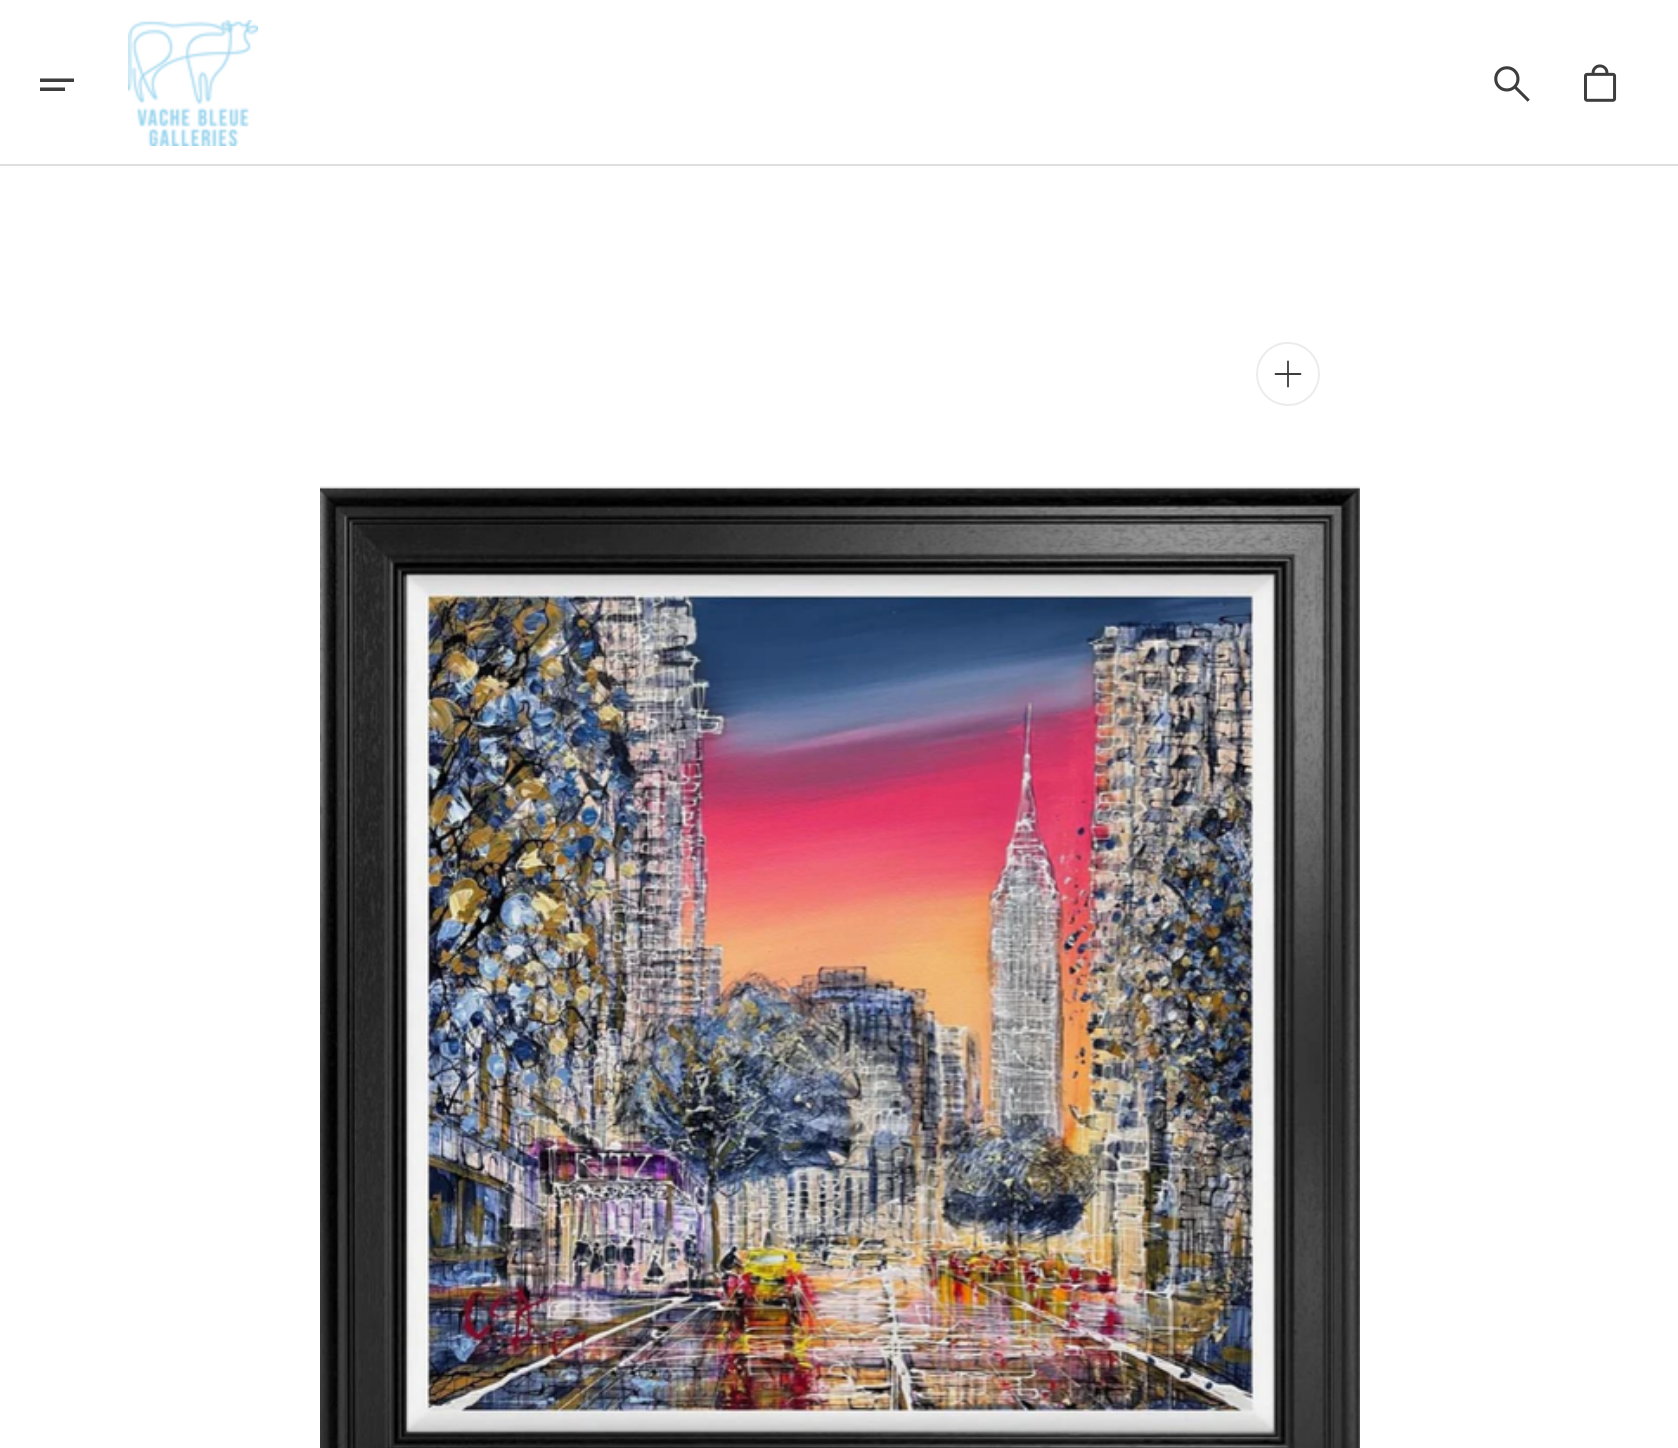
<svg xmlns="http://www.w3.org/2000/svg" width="1678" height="1448">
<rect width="100%" height="100%" fill="#fff"/>
<path fill="#3d3d3d" fill-rule="evenodd" d="M74 78.5h-34v3.5h34zm-9 9h-25v3.5h25z"/>
<image href="1.png" x="128" y="20" width="130" height="126"/>
<image href="2.png" x="1494" y="66" width="36" height="36"/>
<image href="3.png" x="1584" y="64" width="33" height="38"/>
<path fill="#dfdfdf" d="M0 164h1678v2H0z"/>
<circle fill="none" stroke="#ececec" stroke-width="2" cx="1288" cy="374" r="31"/>
<path fill="none" stroke="#3d3d3d" stroke-width="1.8" stroke-linecap="round" d="M1288 361.5v25m12.5-12.5h-25"/>
<image href="4.png" x="320" y="486" width="1040" height="962"/>
</svg>
